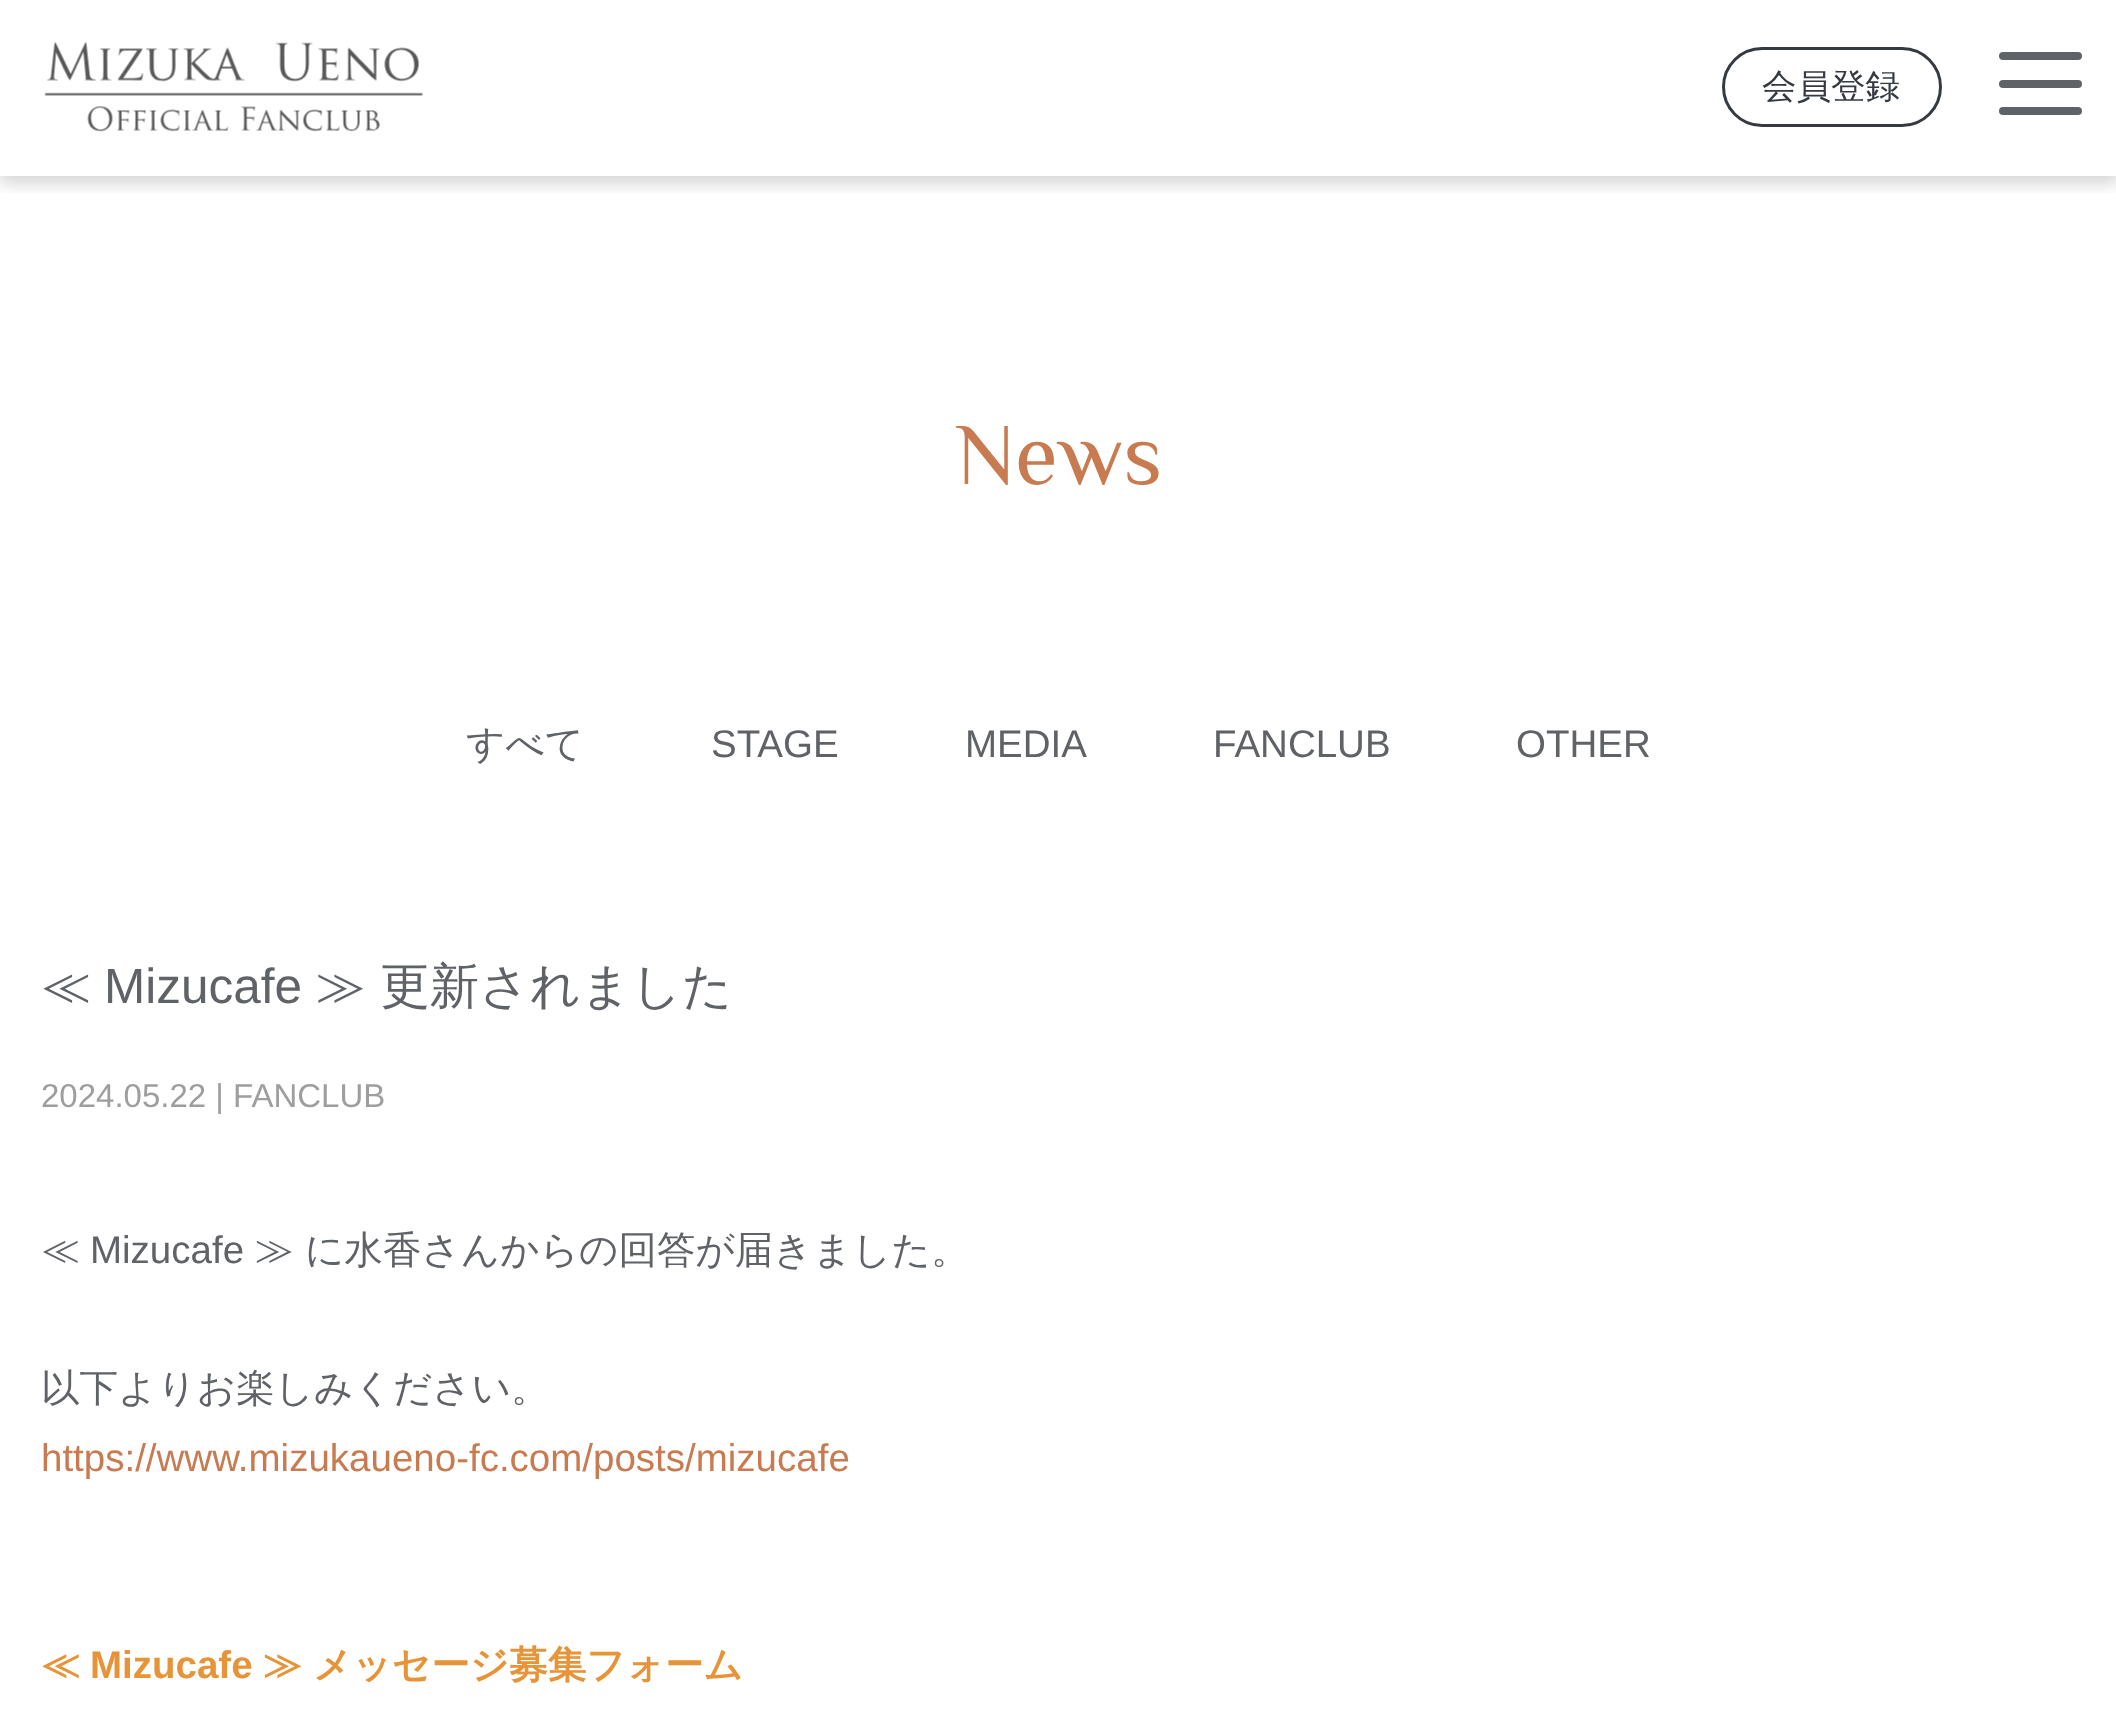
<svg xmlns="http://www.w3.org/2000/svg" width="2116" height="1735">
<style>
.a{font:500 34.5px WenQuanYi Zen Hei;fill:#343a40}
.b{font:88px Philosopher;fill:#c87b50}
.c{font:500 38.5px WenQuanYi Zen Hei;fill:#5f6368}
.d{font:38.5px Liberation Sans;fill:#5f6368}
.e{font:500 49.5px WenQuanYi Zen Hei;fill:#5f6368}
.f{font:49.5px Liberation Sans;fill:#5f6368}
.g{font:33px Liberation Sans;fill:#9e9e9e}
.h{font:38.5px Liberation Sans;fill:#c87b50}
.i{font:bold 38.5px WenQuanYi Zen Hei;fill:#e79439}
.j{font:bold 38.5px Liberation Sans;fill:#e79439}
</style>
<defs>
<clipPath id="clip1"><path d="M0 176h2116v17H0z"/></clipPath>
</defs>
<rect width="100%" height="100%" fill="#fff"/>
<g clip-path="url(#clip1)">
<path fill="#00000029" filter="blur(8px)" d="M0 8h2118v176H0z"/>
</g>
<image href="1.png" x="44" y="42" width="379" height="90"/>
<rect fill="none" stroke="#343a40" stroke-width="3" x="1723.5" y="48.5" width="217" height="77" rx="38.5"/>
<rect fill="#5f6368" x="1999" y="52" width="83" height="8" rx="4"/>
<rect fill="#5f6368" x="1999" y="80" width="83" height="8" rx="4"/>
<rect fill="#5f6368" x="1999" y="107" width="83" height="8" rx="4"/>
<text class="a" x="1762" y="98">会員登録</text>
<text class="b" x="955" y="484">News</text>
<text class="c" x="466" y="757">すべて</text>
<text class="d" x="711" y="757">STAGE</text>
<text class="d" x="965" y="757">MEDIA</text>
<text class="d" x="1213" y="757">FANCLUB</text>
<text class="d" x="1516" y="757">OTHER</text>
<text class="e" x="41" y="1003">≪</text>
<text class="f" x="104" y="1003">Mizucafe</text>
<text class="e" x="316" y="1003">≫ 更新されました</text>
<text class="g" x="41" y="1107">2024.05.22 | FANCLUB</text>
<text class="c" x="41" y="1263">≪</text>
<text class="d" x="90" y="1263">Mizucafe</text>
<text class="c" x="255" y="1263">≫ に水香さんからの回答が届きました。</text>
<text class="c" x="41" y="1401">以下よりお楽しみください。</text>
<text class="h" x="41" y="1471">https://www.mizukaueno-fc.com/posts/mizucafe</text>
<text class="i" x="41" y="1678">≪</text>
<text class="j" x="90" y="1678">Mizucafe</text>
<text class="i" x="263" y="1678">≫ メッセージ募集フォーム</text>
</svg>
